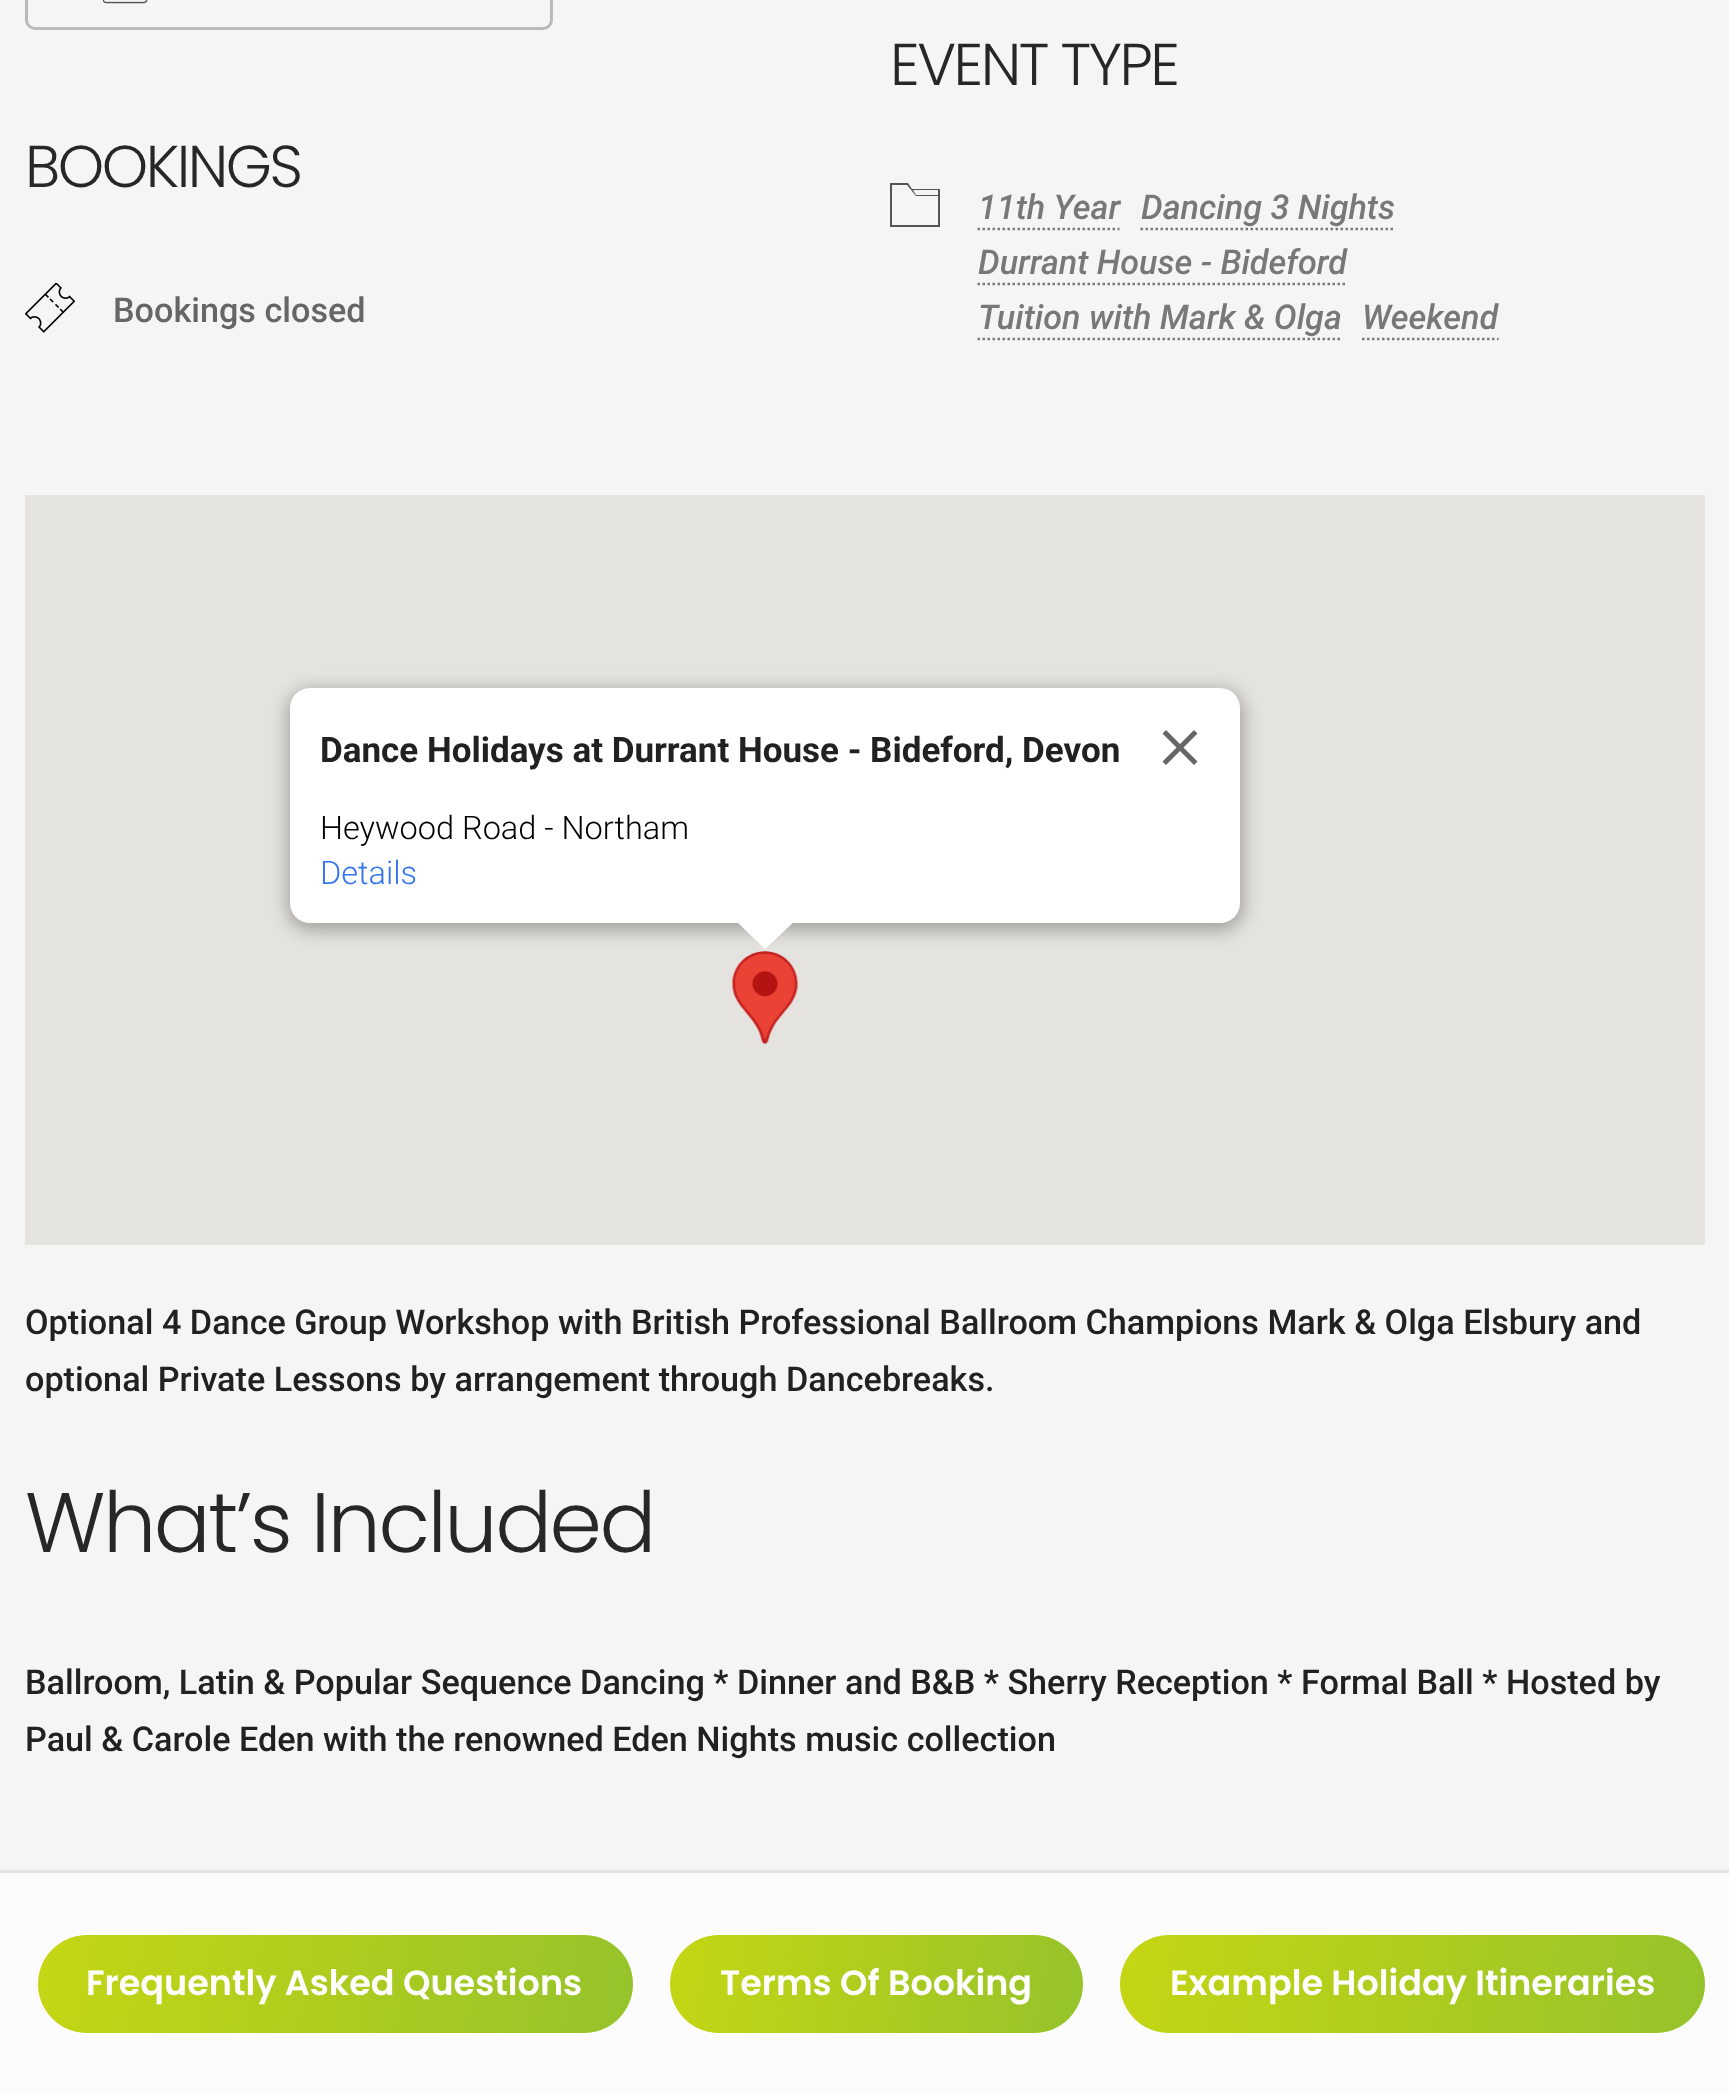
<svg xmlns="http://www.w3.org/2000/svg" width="1729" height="2094">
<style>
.a{font:300 59px Poppins;letter-spacing:-2.5px;fill:#272727}
.b{font:500 34.2px Roboto;fill:#666}
.c{font:italic 500 34.2px Roboto;fill:#787878}
.d{font:bold 35px Roboto;fill:#212121}
.e{font:300 32.5px Roboto;fill:#000}
.f{font:300 32.5px Roboto;fill:#3372f0}
.g{font:500 34.2px Roboto;fill:#212121}
.h{font:300 84.25px Poppins;letter-spacing:-2.5px;fill:#272727}
.i{font:600 35px Poppins;fill:#fff}
</style>
<defs>
<linearGradient id="g1" gradientUnits="userSpaceOnUse" x1="38" y1="1931" x2="632" y2="2036"><stop offset="0" stop-color="#c5d613"/><stop offset="1" stop-color="#95c32b"/></linearGradient>
<linearGradient id="g2" gradientUnits="userSpaceOnUse" x1="668" y1="1947" x2="1085" y2="2020"><stop offset="0" stop-color="#c5d613"/><stop offset="1" stop-color="#95c32b"/></linearGradient>
<linearGradient id="g3" gradientUnits="userSpaceOnUse" x1="1120" y1="1932" x2="1705" y2="2035"><stop offset="0" stop-color="#c5d613"/><stop offset="1" stop-color="#95c32b"/></linearGradient>
</defs>
<rect width="100%" height="100%" fill="#f5f5f5"/>
<path fill="#fcfcfc" d="M0 1873h1729v221H0z"/>
<rect fill="none" stroke="#bababa" stroke-width="3" x="26.5" y="-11.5" width="525" height="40" rx="8.5"/>
<image href="1.png" x="103" y="0" width="45" height="4"/>
<image href="2.png" x="25" y="283" width="50" height="50"/>
<path fill="#555" d="M912 189l-4-6h-18v44h50v-38zm26 1v5h-22l-3-5zm-46 35v-40h15l9 11h22v29z"/>
<path fill="none" stroke="#787878" stroke-width="2.5" stroke-dasharray="2.5 2.5" d="M977.5 229h142"/>
<path fill="none" stroke="#787878" stroke-width="2.5" stroke-dasharray="2.5 2.5" d="M1140.5 229h254"/>
<path fill="none" stroke="#787878" stroke-width="2.5" stroke-dasharray="2.5 2.5" d="M977.5 284h369"/>
<path fill="none" stroke="#787878" stroke-width="2.5" stroke-dasharray="2.5 2.5" d="M977.5 339h363.5"/>
<path fill="none" stroke="#787878" stroke-width="2.5" stroke-dasharray="2.5 2.5" d="M1362 339h136.5"/>
<path fill="#e5e3df" d="M25 495h1680v750H25z"/>
<image href="3.png" x="732" y="951" width="66" height="93"/>
<rect fill="#0000004d" filter="blur(9px)" x="288" y="690" width="955" height="240" rx="23"/>
<rect fill="#fff" x="290" y="688" width="950" height="235" rx="20"/>
<path fill="#666" d="M1197.5 733.5l-3.5-3.5l-14 14l-14-14l-3.5 3.5l14 14l-14 14l3.5 3.5l14-14l14 14l3.5-3.5l-14-14z"/>
<path fill="#fff" d="M735 920l30 29l31-29z"/>
<path fill="#e3e3e3" d="M0 1870h1729v3H0z"/>
<rect fill="url(#g1)" x="38" y="1935" width="595" height="98" rx="49"/>
<rect fill="url(#g2)" x="670" y="1935" width="413" height="98" rx="49"/>
<rect fill="url(#g3)" x="1120" y="1935" width="585" height="98" rx="49"/>
<text class="a" x="25" y="187">BOOKINGS</text>
<text class="b" x="113" y="322">Bookings closed</text>
<text class="a" x="890" y="85">EVENT TYPE</text>
<text class="c" x="978" y="219">11th Year</text>
<text class="c" x="1141" y="219">Dancing 3 Nights</text>
<text class="c" x="978" y="274">Durrant House - Bideford</text>
<text class="c" x="978" y="329">Tuition with Mark &amp; Olga</text>
<text class="c" x="1362" y="329">Weekend</text>
<text class="d" x="320" y="762">Dance Holidays at Durrant House - Bideford, Devon</text>
<text class="e" x="320" y="839">Heywood Road - Northam</text>
<text class="f" x="320" y="884">Details</text>
<text class="g" x="25" y="1334">Optional 4 Dance Group Workshop with British Professional Ballroom Champions Mark &amp; Olga Elsbury and</text>
<text class="g" x="25" y="1391">optional Private Lessons by arrangement through Dancebreaks.</text>
<text class="h" x="25" y="1552">What’s Included</text>
<text class="g" x="25" y="1694">Ballroom, Latin &amp; Popular Sequence Dancing * Dinner and B&amp;B * Sherry Reception * Formal Ball * Hosted by</text>
<text class="g" x="25" y="1751">Paul &amp; Carole Eden with the renowned Eden Nights music collection</text>
<text class="i" x="86" y="1995">Frequently Asked Questions</text>
<text class="i" x="720" y="1995">Terms Of Booking</text>
<text class="i" x="1170" y="1995">Example Holiday Itineraries</text>
</svg>
